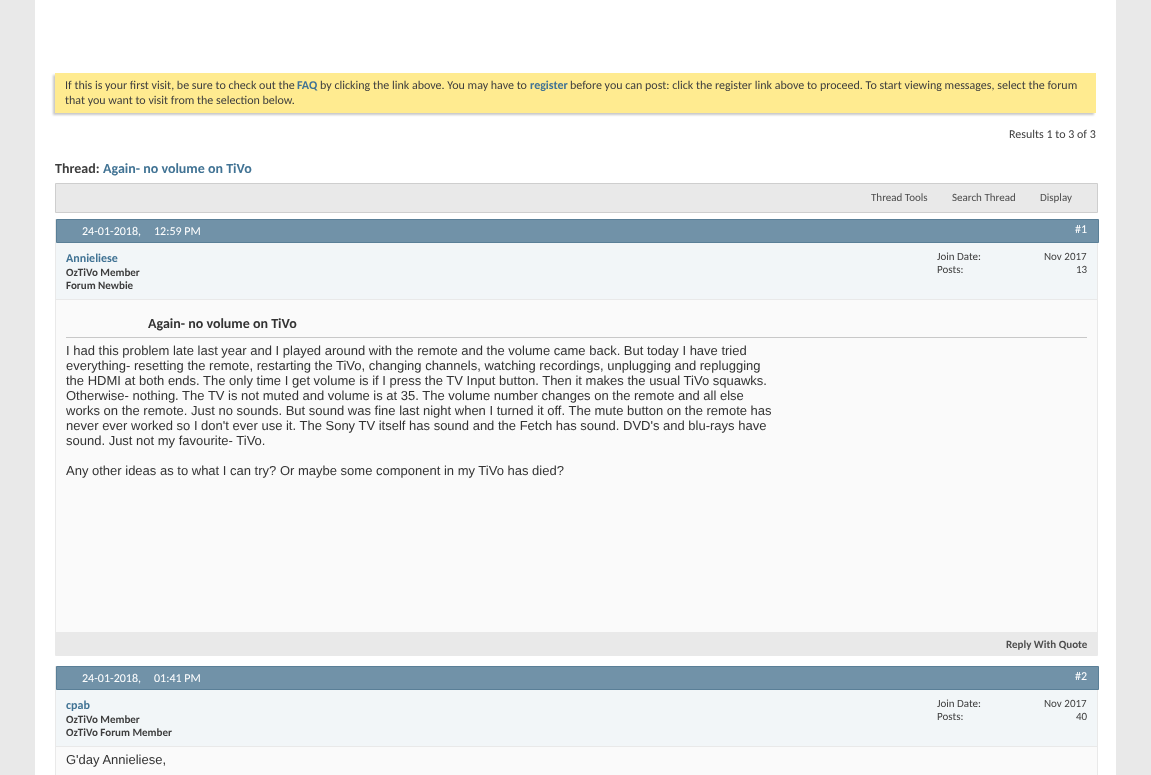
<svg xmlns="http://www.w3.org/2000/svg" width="1151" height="775">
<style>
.a{font:12px Carlito;fill:#3e3e3e}
.b{font:bold 12px Carlito;fill:#417394}
.c{font:bold 14px Carlito;fill:#3e3e3e}
.d{font:bold 14px Carlito;fill:#417394}
.e{font:11px Carlito;fill:#4e4e4e}
.f{font:12px Carlito;fill:#fff}
.g{font:bold 11px Carlito;fill:#3e3e3e}
.h{font:11px Carlito;fill:#3e3e3e}
.i{font:bold 14px Carlito;fill:#333}
.j{font:13px Liberation Sans;fill:#333}
.k{font:bold 11px Carlito;fill:#4e4e4e}
</style>
<rect width="100%" height="100%" fill="#e9e9e9"/>
<path fill="#fff" d="M35 0h1081v775H35z"/>
<path fill="#c8c8c8" filter="blur(1px)" d="M53 75h1041v40H53z"/>
<path fill="#ffeb90" d="M55 73h1041v40H55z"/>
<path fill="#e9e9e9" stroke="#cecece" d="M55.5 183.5h1042v29H55.5z"/>
<path fill="none" stroke="#e9e9e9" d="M55.5 219.5h1042v436H55.5z"/>
<path fill="#7192a8" stroke="#5a7f97" d="M56.5 219.5h1042v23H56.5z"/>
<path fill="#f2f6f8" d="M56 243h1041v56H56z"/>
<path fill="#e9e9e9" d="M56 299h1041v1H56z"/>
<path fill="#fafafa" d="M56 300h1041v332H56z"/>
<path fill="#c8c8c8" d="M66 337h1021v1H66z"/>
<path fill="#e9e9e9" d="M56 632h1041v23H56z"/>
<path fill="none" stroke="#e9e9e9" d="M55.5 666.5h1042v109H55.5z"/>
<path fill="#7192a8" stroke="#5a7f97" d="M56.5 666.5h1042v23H56.5z"/>
<path fill="#f2f6f8" d="M56 690h1041v56H56z"/>
<path fill="#e9e9e9" d="M56 746h1041v1H56z"/>
<path fill="#fafafa" d="M56 747h1041v28H56z"/>
<text class="a" x="65" y="89">If this is your first visit, be sure to check out the</text>
<text class="b" x="297" y="89">FAQ</text>
<text class="a" x="320" y="89">by clicking the link above. You may have to</text>
<text class="b" x="530" y="89">register</text>
<text class="a" x="570" y="89">before you can post: click the register link above to proceed. To start viewing messages, select the forum</text>
<text class="a" x="65" y="104">that you want to visit from the selection below.</text>
<text class="a" x="1009" y="138">Results 1 to 3 of 3</text>
<text class="c" x="55" y="173">Thread:</text>
<text class="d" x="103" y="173">Again- no volume on TiVo</text>
<text class="e" x="871" y="201">Thread Tools</text>
<text class="e" x="952" y="201">Search Thread</text>
<text class="e" x="1040" y="201">Display</text>
<text class="f" x="82" y="235">24-01-2018,</text>
<text class="f" x="154" y="235">12:59 PM</text>
<text class="f" x="1075" y="233">#1</text>
<text class="b" x="66" y="262">Annieliese</text>
<text class="g" x="66" y="276">OzTiVo Member</text>
<text class="g" x="66" y="289">Forum Newbie</text>
<text class="h" x="937" y="260">Join Date:</text>
<text class="h" x="1044" y="260">Nov 2017</text>
<text class="h" x="937" y="273">Posts:</text>
<text class="h" x="1076" y="273">13</text>
<text class="i" x="148" y="328">Again- no volume on TiVo</text>
<text class="j" x="66" y="355">I had this problem late last year and I played around with the remote and the volume came back. But today I have tried</text>
<text class="j" x="66" y="370">everything- resetting the remote, restarting the TiVo, changing channels, watching recordings, unplugging and replugging</text>
<text class="j" x="66" y="385">the HDMI at both ends. The only time I get volume is if I press the TV Input button. Then it makes the usual TiVo squawks.</text>
<text class="j" x="66" y="400">Otherwise- nothing. The TV is not muted and volume is at 35. The volume number changes on the remote and all else</text>
<text class="j" x="66" y="415">works on the remote. Just no sounds. But sound was fine last night when I turned it off. The mute button on the remote has</text>
<text class="j" x="66" y="430">never ever worked so I don't ever use it. The Sony TV itself has sound and the Fetch has sound. DVD's and blu-rays have</text>
<text class="j" x="66" y="445">sound. Just not my favourite- TiVo.</text>
<text class="j" x="66" y="475">Any other ideas as to what I can try? Or maybe some component in my TiVo has died?</text>
<text class="k" x="1006" y="648">Reply With Quote</text>
<text class="f" x="82" y="682">24-01-2018,</text>
<text class="f" x="154" y="682">01:41 PM</text>
<text class="f" x="1075" y="680">#2</text>
<text class="b" x="66" y="709">cpab</text>
<text class="g" x="66" y="723">OzTiVo Member</text>
<text class="g" x="66" y="736">OzTiVo Forum Member</text>
<text class="h" x="937" y="707">Join Date:</text>
<text class="h" x="1044" y="707">Nov 2017</text>
<text class="h" x="937" y="720">Posts:</text>
<text class="h" x="1076" y="720">40</text>
<text class="j" x="66" y="764">G'day Annieliese,</text>
</svg>
